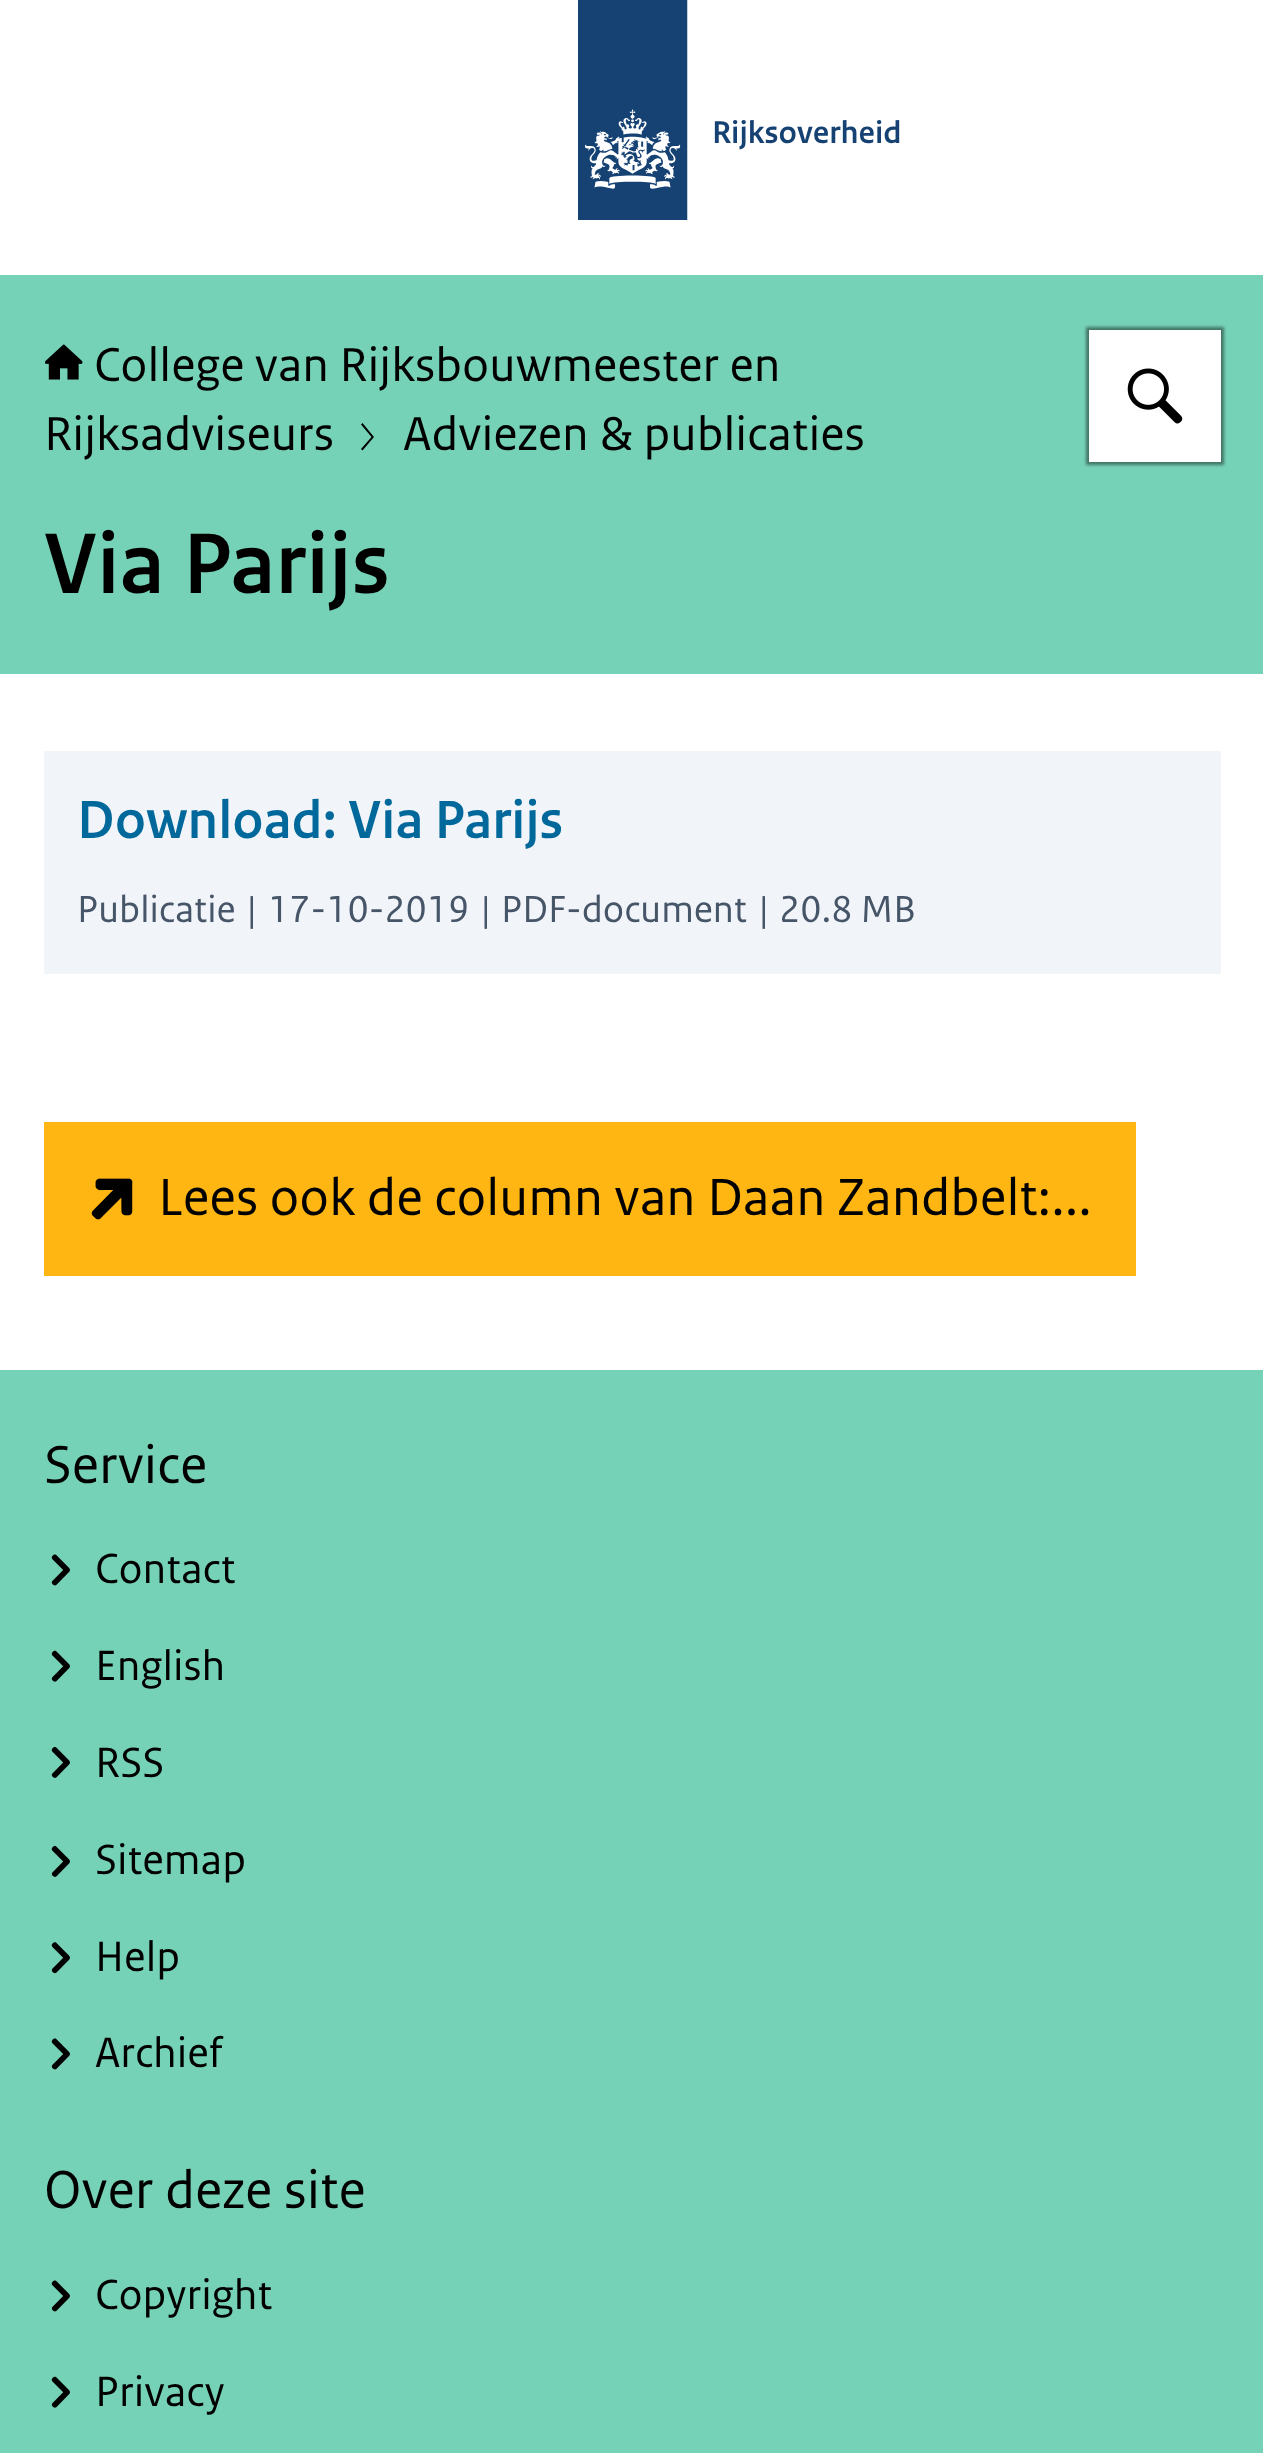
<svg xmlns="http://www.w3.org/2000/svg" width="1263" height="2453">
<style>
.a{font:600 33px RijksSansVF;fill:#154273}
.b{font:50.1px RijksSansVF;fill:#000}
.c{font:600 90.5px 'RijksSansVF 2';fill:#000}
.d{font:600 56.25px 'RijksSansVF 2';fill:#01689b}
.e{font:39.5px RijksSansVF;fill:#475569}
.f{font:55px RijksSansVF;fill:#000}
.g{font:56.25px RijksSansVF;fill:#000}
.h{font:44.5px RijksSansVF;fill:#000}
</style>
<rect width="100%" height="100%" fill="#fff"/>
<image href="1.png" x="578" y="0" width="110" height="220"/>
<path fill="#76d2b6" d="M0 275h1263v399H0z"/>
<image href="2.png" x="45" y="344" width="38" height="36"/>
<path fill="#000" d="M362.5 450.5l-1.5-1.5l10.5-12l-10.5-12.5l1.5-1.5l11.5 14z"/>
<path fill="#00000070" filter="blur(1.5px)" d="M1086 327h138v138H1086z"/>
<path fill="#fff" d="M1089 330h132v132H1089z"/>
<image href="3.png" x="1127" y="368" width="56" height="56"/>
<path fill="#f1f5f9" d="M44 751h1177v223H44z"/>
<path fill="#ffb612" d="M44 1122h1092v154H44z"/>
<image href="4.png" x="91" y="1178" width="42" height="42"/>
<path fill="#76d2b6" d="M0 1370h1263v1083H0z"/>
<image href="5.png" x="51" y="1554" width="19" height="32"/>
<image href="6.png" x="51" y="1650" width="19" height="32"/>
<image href="7.png" x="51" y="1746" width="19" height="32"/>
<image href="7.png" x="51" y="1845" width="19" height="32"/>
<image href="8.png" x="51" y="1942" width="19" height="32"/>
<image href="5.png" x="51" y="2038" width="19" height="32"/>
<image href="5.png" x="51" y="2280" width="19" height="32"/>
<image href="6.png" x="51" y="2376" width="19" height="32"/>
<text class="a" x="712" y="143">Rijksoverheid</text>
<text class="b" x="94" y="381">College van Rijksbouwmeester en</text>
<text class="b" x="44" y="450">Rijksadviseurs</text>
<text class="b" x="403" y="450">Adviezen &amp; publicaties</text>
<text class="c" x="44" y="593">Via Parijs</text>
<text class="d" x="77" y="838">Download: Via Parijs</text>
<text class="e" x="77" y="922">Publicatie</text>
<text class="e" x="247" y="922">|</text>
<text class="e" x="268" y="922">17-10-2019</text>
<text class="e" x="481" y="922">|</text>
<text class="e" x="501" y="922">PDF-document</text>
<text class="e" x="759" y="922">|</text>
<text class="e" x="779" y="922">20.8 MB</text>
<text class="f" x="158" y="1215">Lees ook de column van Daan Zandbelt:...</text>
<text class="g" x="44" y="1483">Service</text>
<text class="h" x="95" y="1583">Contact</text>
<text class="h" x="95" y="1680">English</text>
<text class="h" x="95" y="1777">RSS</text>
<text class="h" x="95" y="1874">Sitemap</text>
<text class="h" x="95" y="1971">Help</text>
<text class="h" x="95" y="2067">Archief</text>
<text class="g" x="44" y="2208">Over deze site</text>
<text class="h" x="95" y="2309">Copyright</text>
<text class="h" x="95" y="2406">Privacy</text>
</svg>
